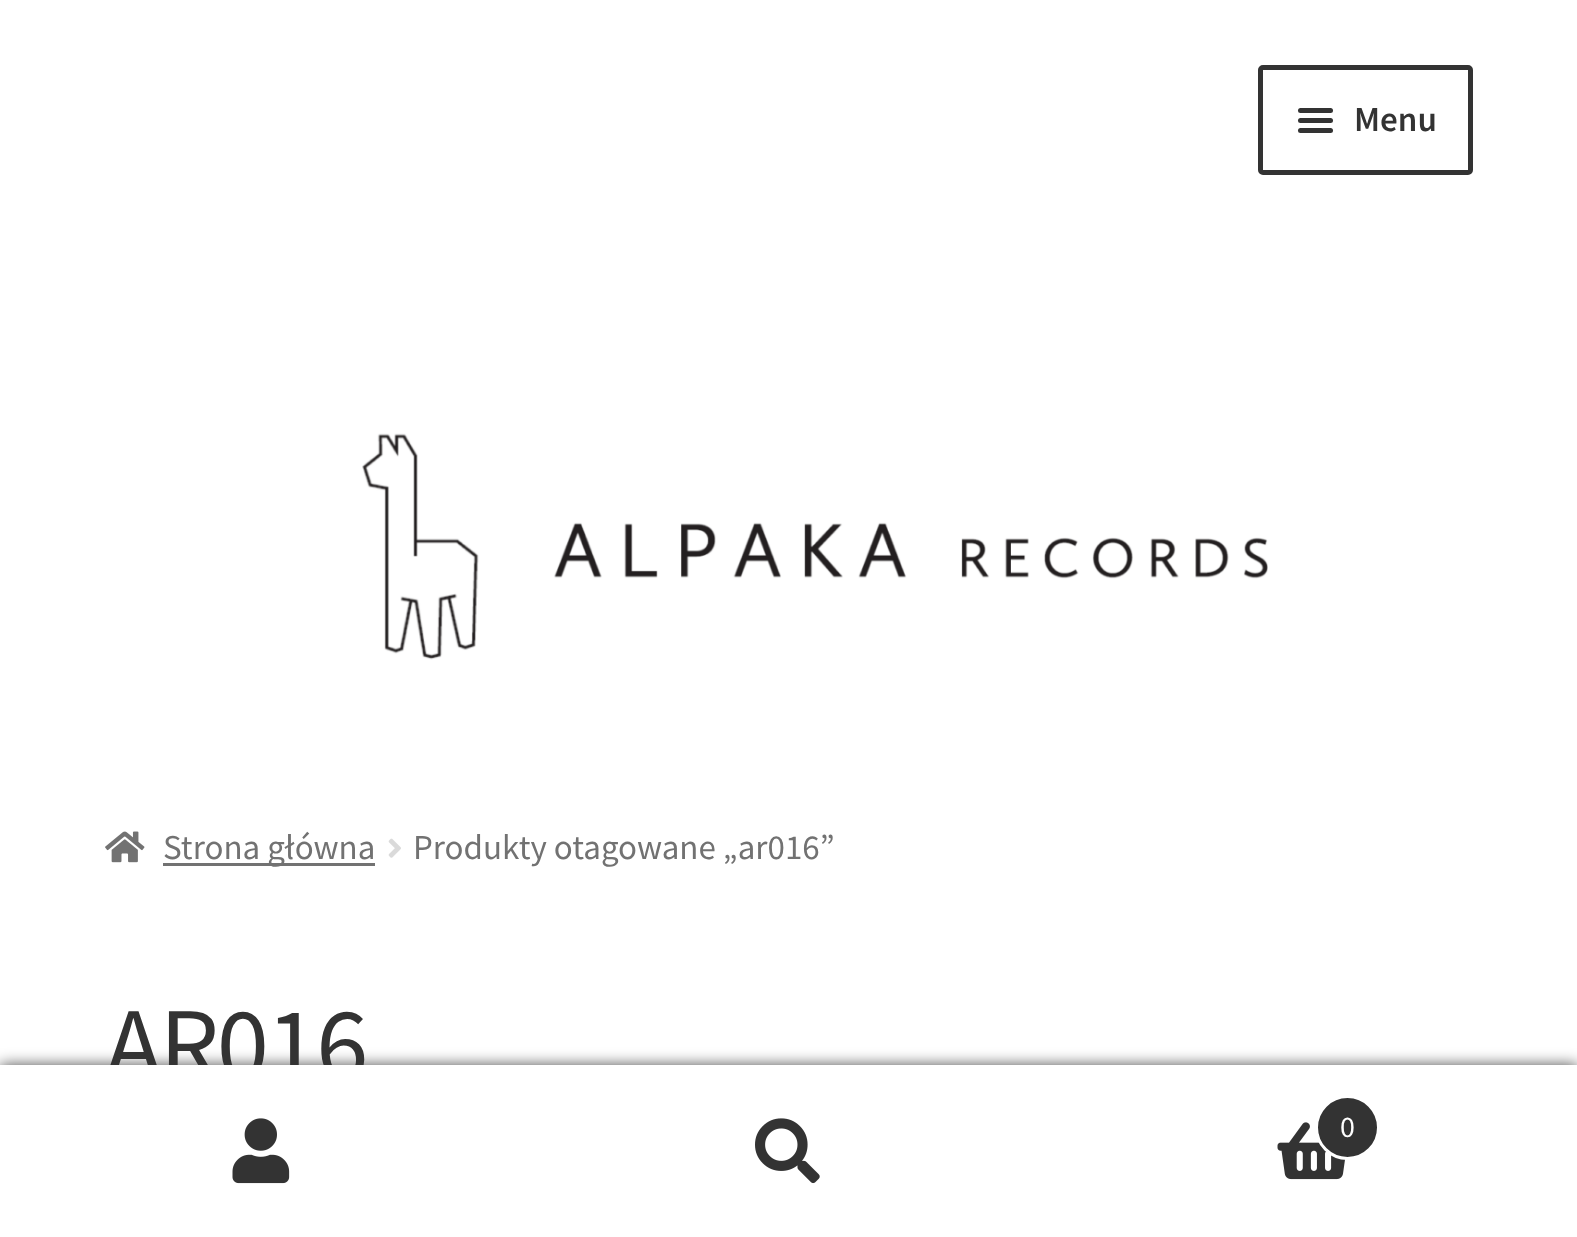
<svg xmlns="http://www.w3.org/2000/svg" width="1577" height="1237">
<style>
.a{font:600 35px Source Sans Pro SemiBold;fill:#333}
.b{font:35px Source Sans Pro;fill:#727272}
.c{font:105px Source Sans Pro;letter-spacing:-2.5px;fill:#333}
.d{font:30px Source Sans Pro;fill:#fff}
</style>
<rect width="100%" height="100%" fill="#fff"/>
<rect fill="none" stroke="#333" stroke-width="5" x="1260.5" y="67.5" width="210" height="105" rx="2.5"/>
<rect fill="#333" x="1298" y="108" width="35" height="5" rx="2.5"/>
<rect fill="#333" x="1298" y="118" width="35" height="5" rx="2.5"/>
<rect fill="#333" x="1298" y="128" width="35" height="5" rx="2.5"/>
<image href="1.png" x="362" y="433" width="906" height="227"/>
<image href="2.png" x="105" y="831" width="40" height="32"/>
<path fill="#727272" d="M163 863h212v3H163z"/>
<image href="3.png" x="388" y="838" width="13" height="20"/>
<path fill="#000000b3" filter="blur(7.5px)" d="M0 1065h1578v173H0z"/>
<text class="a" x="1354" y="131">Menu</text>
<text class="b" x="163" y="859">Strona główna</text>
<text class="b" x="413" y="859">Produkty otagowane „ar016”</text>
<text class="c" x="105" y="1080">AR016</text>
<path fill="#fff" d="M0 1065h1577v3H0z"/>
<path fill="#fff" d="M0 1068h1577v169H0z"/>
<image href="4.png" x="232" y="1118" width="58" height="66"/>
<image href="5.png" x="755" y="1118" width="65" height="66"/>
<image href="6.png" x="1277" y="1122" width="69" height="58"/>
<circle fill="#333" stroke="#fff" stroke-width="3" cx="1347.5" cy="1127.5" r="31"/>
<text class="d" x="1340" y="1137">0</text>
</svg>
